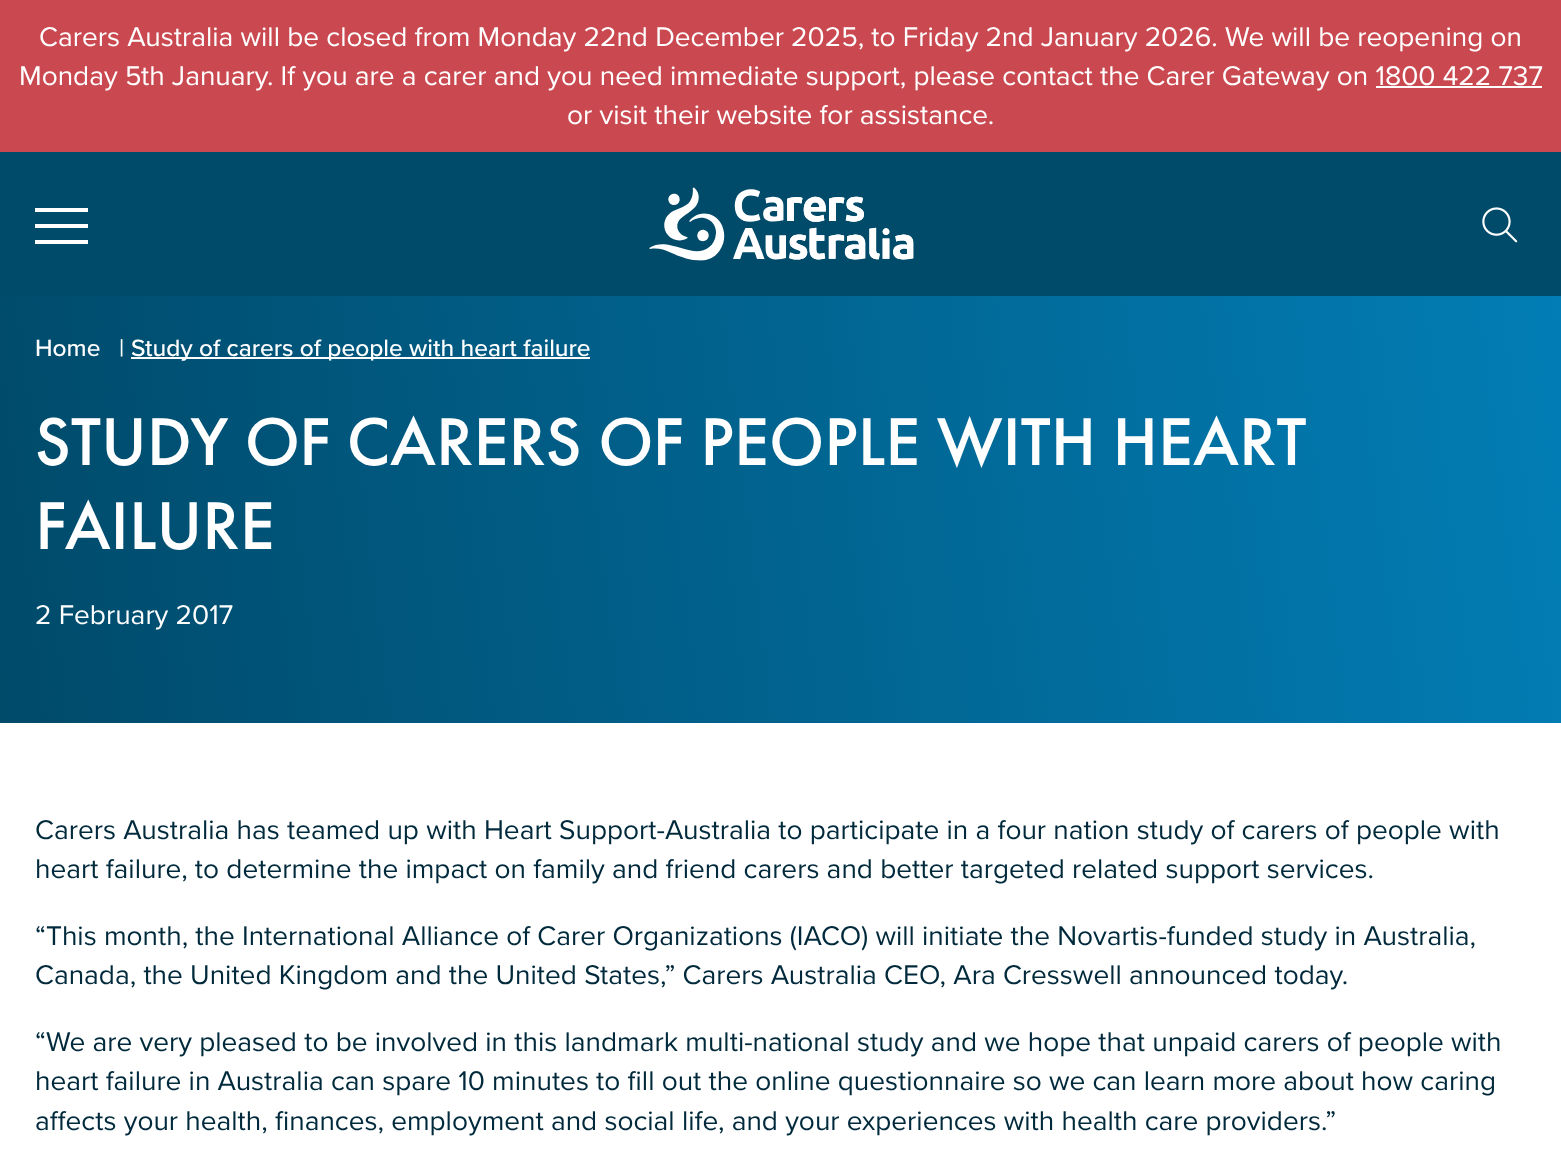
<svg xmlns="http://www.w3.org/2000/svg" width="1561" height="1162">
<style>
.a{font:28px Proxima Nova;fill:#fff}
.b{font:500 24.5px Proxima Nova;fill:#fff}
.c{font:500 70px Futura PT;fill:#fff}
.d{font:28px Proxima Nova;fill:#002a3c}
</style>
<defs>
<linearGradient id="g1" gradientUnits="userSpaceOnUse" x1="-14" y1="607" x2="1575" y2="412"><stop offset="0" stop-color="#004a6a"/><stop offset="1" stop-color="#027db5"/></linearGradient>
</defs>
<rect width="100%" height="100%" fill="#fff"/>
<path fill="#ca4950" d="M0 0h1561v152H0z"/>
<path fill="#fff" d="M1376 86h166v2H1376z"/>
<path fill="#004a6a" d="M0 152h1561v144H0z"/>
<path fill="#fff" d="M35 208h53v4H35z"/>
<path fill="#fff" d="M35 224h53v4H35z"/>
<path fill="#fff" d="M35 240h53v4H35z"/>
<image href="1.png" x="649" y="187" width="265" height="74"/>
<image href="2.png" x="1482" y="207" width="36" height="36"/>
<path fill="url(#g1)" d="M0 296h1561v427H0z"/>
<path fill="#fff" d="M131 357h459v2H131z"/>
<text class="a" x="39" y="46">Carers Australia will be closed from Monday 22nd December 2025, to Friday 2nd January 2026. We will be reopening on</text>
<text class="a" x="19" y="85">Monday 5th January. If you are a carer and you need immediate support, please contact the Carer Gateway on 1800 422 737</text>
<text class="a" x="567" y="124">or visit their website for assistance.</text>
<text class="b" x="35" y="356">Home</text>
<text class="b" x="119" y="356">|</text>
<text class="b" x="131" y="356">Study of carers of people with heart failure</text>
<text class="c" x="35" y="465">STUDY OF CARERS OF PEOPLE WITH HEART</text>
<text class="c" x="35" y="549">FAILURE</text>
<text class="a" x="35" y="624">2 February 2017</text>
<text class="d" x="35" y="839">Carers Australia has teamed up with Heart Support-Australia to participate in a four nation study of carers of people with</text>
<text class="d" x="35" y="878">heart failure, to determine the impact on family and friend carers and better targeted related support services.</text>
<text class="d" x="35" y="945">“This month, the International Alliance of Carer Organizations (IACO) will initiate the Novartis-funded study in Australia,</text>
<text class="d" x="35" y="984">Canada, the United Kingdom and the United States,” Carers Australia CEO, Ara Cresswell announced today.</text>
<text class="d" x="35" y="1051">“We are very pleased to be involved in this landmark multi-national study and we hope that unpaid carers of people with</text>
<text class="d" x="35" y="1090">heart failure in Australia can spare 10 minutes to fill out the online questionnaire so we can learn more about how caring</text>
<text class="d" x="35" y="1130">affects your health, finances, employment and social life, and your experiences with health care providers.”</text>
</svg>
